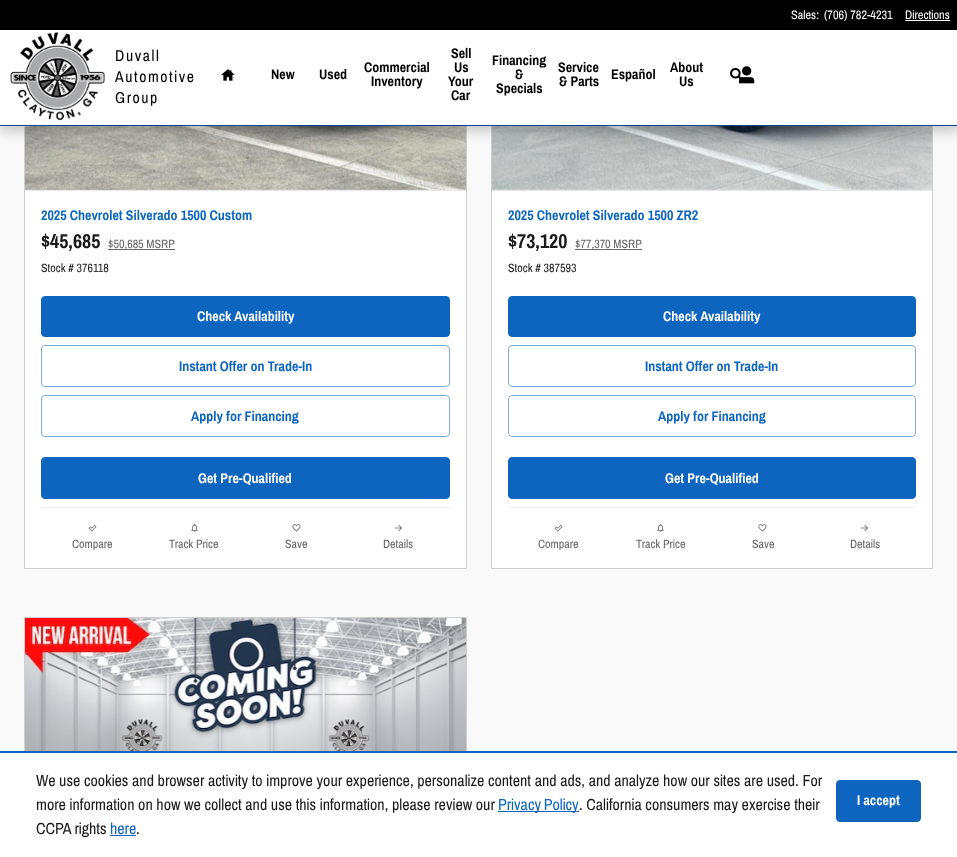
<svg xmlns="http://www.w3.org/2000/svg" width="957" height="857">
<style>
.a{font:12.25px Archivo Narrow;fill:#fff}
.b{font:15.75px Archivo Narrow;letter-spacing:1.6px;fill:#000}
.c{font:bold 14px Archivo Narrow;fill:#000}
.d{font:bold 14px Archivo Narrow;fill:#0d65bf}
.e{font:bold 20px Archivo Narrow;fill:#1a1a1a}
.f{font:12px Archivo Narrow;fill:#666}
.g{font:12px Archivo Narrow;fill:#1a1a1a}
.h{font:bold 14px Archivo Narrow;fill:#fff}
.i{font:16px Archivo Narrow;fill:#1a1a1a}
.j{font:16px Archivo Narrow;fill:#0d65bf}
</style>
<rect width="100%" height="100%" fill="#f9f9fa"/>
<path fill="#fff" d="M25 189h441v379H25z"/>
<path fill="none" stroke="#cecfd1" d="M24.5 -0.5h442v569H24.5z"/>
<image href="5.png" x="25" y="126" width="441" height="64"/>
<path fill="#fff" d="M492 189h440v379H492z"/>
<path fill="none" stroke="#cecfd1" d="M491.5 -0.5h441v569H491.5z"/>
<image href="10.png" x="492" y="126" width="440" height="64"/>
<path fill="#0000002e" filter="blur(6px)" d="M0 6h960v126H0z"/>
<path fill="#fff" d="M0 30h957v95H0z"/>
<path fill="#0a468d" d="M0 125h957v1H0z"/>
<path fill="#000" d="M0 0h957v30H0z"/>
<path fill="#fff" d="M905 20h45v1H905z"/>
<image href="1.png" x="10" y="32" width="95" height="89"/>
<image href="2.png" x="221" y="69" width="14" height="12"/>
<image href="3.png" x="730" y="67" width="12" height="13"/>
<image href="4.png" x="738" y="66" width="17" height="18"/>
<path fill="#e6e6e6" d="M25 190h441v1H25z"/>
<path fill="#666" d="M108 249h67v1H108z"/>
<rect fill="#0d65bf" stroke="#0d65bf" x="41.5" y="296.5" width="408" height="40" rx="3.5"/>
<rect fill="none" stroke="#7cacdc" x="41.5" y="345.5" width="408" height="41" rx="3.5"/>
<rect fill="none" stroke="#7cacdc" x="41.5" y="395.5" width="408" height="41" rx="3.5"/>
<rect fill="#0d65bf" stroke="#0d65bf" x="41.5" y="457.5" width="408" height="41" rx="3.5"/>
<path fill="#eee" d="M41 507h409v1H41z"/>
<image href="6.png" x="88" y="525" width="9" height="7"/>
<image href="7.png" x="191" y="524" width="7" height="9"/>
<image href="8.png" x="292" y="524" width="9" height="8"/>
<image href="9.png" x="394" y="524" width="8" height="8"/>
<path fill="#e6e6e6" d="M492 190h440v1H492z"/>
<path fill="#666" d="M575 249h67v1H575z"/>
<rect fill="#0d65bf" stroke="#0d65bf" x="508.5" y="296.5" width="407" height="40" rx="3.5"/>
<rect fill="none" stroke="#7cacdc" x="508.5" y="345.5" width="407" height="41" rx="3.5"/>
<rect fill="none" stroke="#7cacdc" x="508.5" y="395.5" width="407" height="41" rx="3.5"/>
<rect fill="#0d65bf" stroke="#0d65bf" x="508.5" y="457.5" width="407" height="41" rx="3.5"/>
<path fill="#eee" d="M508 507h408v1H508z"/>
<image href="6.png" x="554" y="525" width="9" height="7"/>
<image href="7.png" x="657" y="524" width="7" height="9"/>
<image href="8.png" x="758" y="524" width="9" height="8"/>
<image href="9.png" x="860" y="524" width="8" height="8"/>
<path fill="none" stroke="#cecfd1" d="M24.5 617.5h442v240H24.5z"/>
<image href="11.png" x="25" y="618" width="441" height="133"/>
<path fill="#fff" d="M0 753h957v104H0z"/>
<path fill="#0d65bf" d="M0 751h957v2H0z"/>
<path fill="#0d65bf" d="M498 811h81v1H498z"/>
<path fill="#0d65bf" d="M110 835h26v1H110z"/>
<rect fill="#0d65bf" stroke="#0d65bf" x="836.5" y="780.5" width="84" height="41" rx="3.5"/>
<text class="a" x="791" y="19">Sales:</text>
<text class="a" x="824" y="19">(706) 782-4231</text>
<text class="a" x="905" y="19">Directions</text>
<text class="b" x="115" y="61">Duvall</text>
<text class="b" x="115" y="82">Automotive</text>
<text class="b" x="115" y="103">Group</text>
<text class="c" x="271" y="79">New</text>
<text class="c" x="319" y="79">Used</text>
<text class="c" x="364" y="72">Commercial</text>
<text class="c" x="371" y="86">Inventory</text>
<text class="c" x="451" y="58">Sell</text>
<text class="c" x="454" y="72">Us</text>
<text class="c" x="448" y="86">Your</text>
<text class="c" x="451" y="100">Car</text>
<text class="c" x="492" y="65">Financing</text>
<text class="c" x="515" y="79">&amp;</text>
<text class="c" x="496" y="93">Specials</text>
<text class="c" x="558" y="72">Service</text>
<text class="c" x="559" y="86">&amp; Parts</text>
<text class="c" x="611" y="79">Español</text>
<text class="c" x="670" y="72">About</text>
<text class="c" x="679" y="86">Us</text>
<text class="d" x="41" y="220">2025 Chevrolet Silverado 1500 Custom</text>
<text class="e" x="41" y="248">$45,685</text>
<text class="f" x="108" y="248">$50,685 MSRP</text>
<text class="g" x="41" y="272">Stock # 376118</text>
<text class="h" x="197" y="321">Check Availability</text>
<text class="d" x="179" y="371">Instant Offer on Trade-In</text>
<text class="d" x="191" y="421">Apply for Financing</text>
<text class="h" x="198" y="483">Get Pre-Qualified</text>
<text class="f" x="72" y="548">Compare</text>
<text class="f" x="169" y="548">Track Price</text>
<text class="f" x="285" y="548">Save</text>
<text class="f" x="383" y="548">Details</text>
<text class="d" x="508" y="220">2025 Chevrolet Silverado 1500 ZR2</text>
<text class="e" x="508" y="248">$73,120</text>
<text class="f" x="575" y="248">$77,370 MSRP</text>
<text class="g" x="508" y="272">Stock # 387593</text>
<text class="h" x="663" y="321">Check Availability</text>
<text class="d" x="645" y="371">Instant Offer on Trade-In</text>
<text class="d" x="658" y="421">Apply for Financing</text>
<text class="h" x="665" y="483">Get Pre-Qualified</text>
<text class="f" x="538" y="548">Compare</text>
<text class="f" x="636" y="548">Track Price</text>
<text class="f" x="752" y="548">Save</text>
<text class="f" x="850" y="548">Details</text>
<text class="i" x="36" y="786">We use cookies and browser activity to improve your experience, personalize content and ads, and analyze how our sites are used. For</text>
<text class="i" x="36" y="810">more information on how we collect and use this information, please review our</text>
<text class="j" x="498" y="810" word-spacing="-1">Privacy Policy</text>
<text class="i" x="579" y="810">. California consumers may exercise their</text>
<text class="i" x="36" y="834">CCPA rights</text>
<text class="j" x="110" y="834">here</text>
<text class="i" x="136" y="834">.</text>
<text class="h" x="857" y="805">I accept</text>
</svg>
